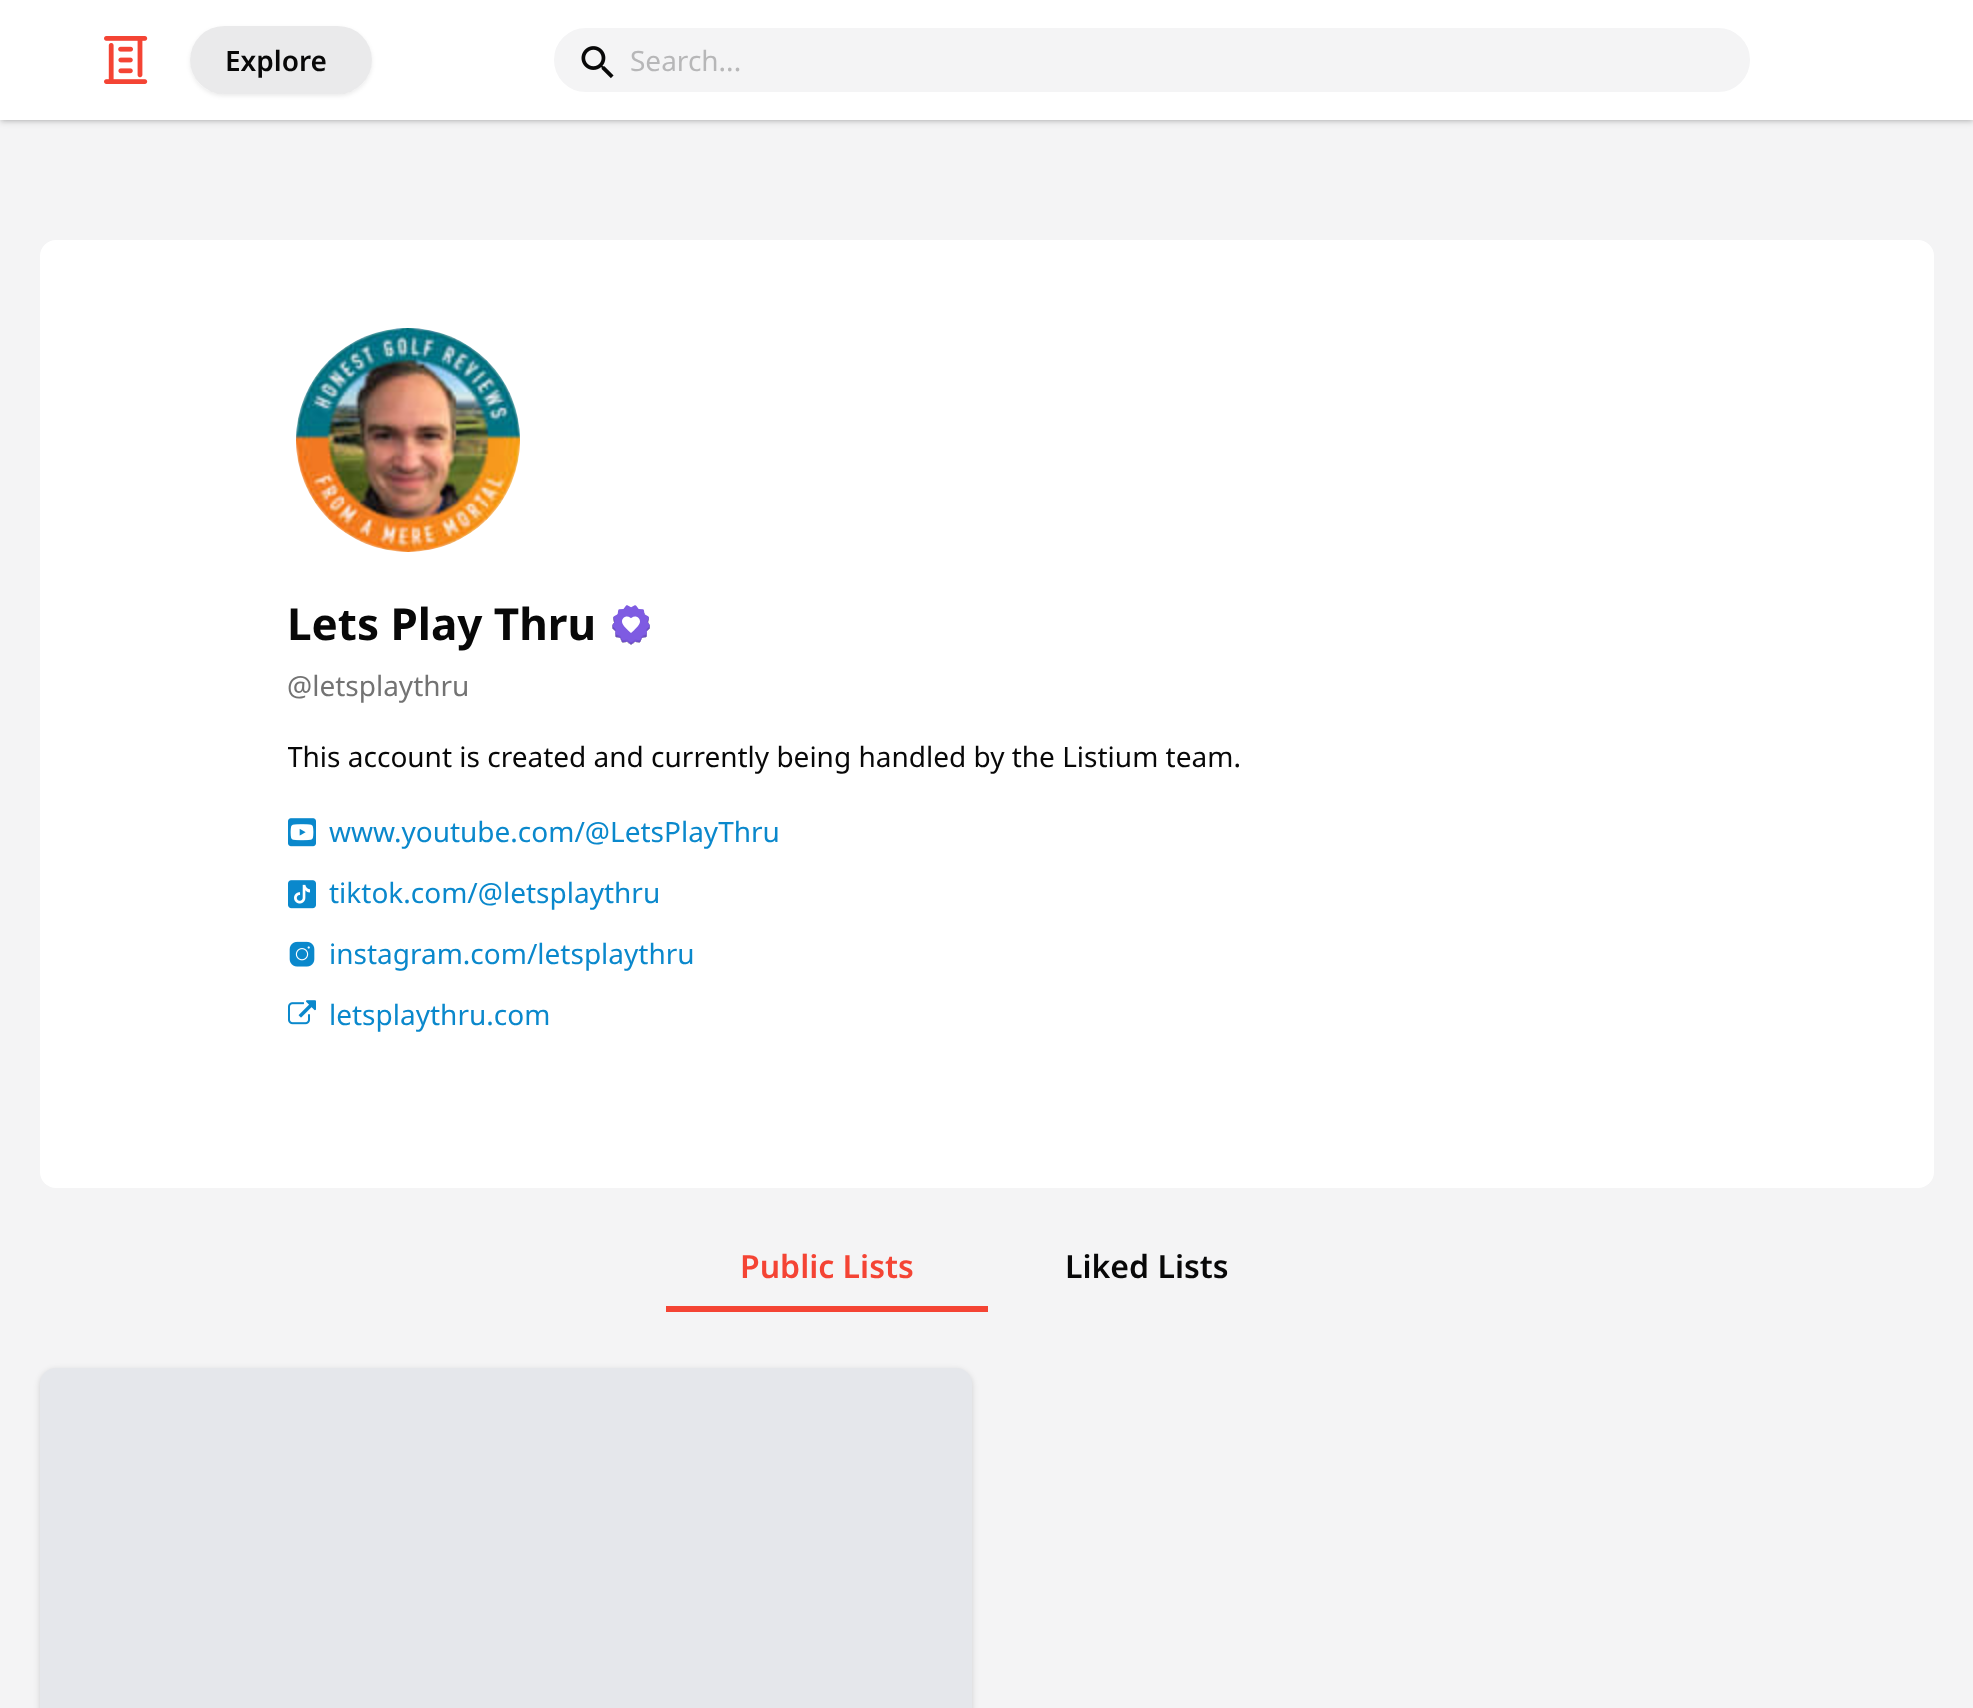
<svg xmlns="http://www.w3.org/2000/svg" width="1973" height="1708">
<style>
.a{font:600 28px Noto Sans;fill:#080808}
.b{font:28px Noto Sans;fill:#b7b7b8}
.c{font:bold 44px Noto Sans;fill:#080808}
.d{font:28px Noto Sans;fill:#737373}
.e{font:28px Noto Sans;fill:#080808}
.f{font:28px Noto Sans;fill:#0a88cc}
.g{font:600 32px Noto Sans;fill:#f44434}
.h{font:600 32px Noto Sans;fill:#080808}
</style>
<defs>
<clipPath id="clip1"><path d="M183 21h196v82h-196zm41 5h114c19 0 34 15 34 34c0 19-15 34-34 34h-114c-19 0-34-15-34-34c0-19 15-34 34-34z" clip-rule="evenodd"/></clipPath>
<clipPath id="clip2"><path d="M288 320h1400v788H288z"/></clipPath>
</defs>
<rect width="100%" height="100%" fill="#f4f4f5"/>
<path fill="#00000026" filter="blur(2px)" d="M2 4h1970v116H2z"/>
<path fill="#00000026" filter="blur(3px)" d="M0 2h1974v120H0z"/>
<path fill="#fff" d="M0 0h1973v120H0z"/>
<image href="1.png" x="104" y="36" width="44" height="48"/>
<g clip-path="url(#clip1)">
<rect fill="#00000014" filter="blur(2px)" x="190" y="28" width="182" height="68" rx="34"/>
</g>
<rect fill="#71717b26" x="190" y="26" width="182" height="68" rx="34"/>
<rect fill="#f4f4f5" stroke="#fff" stroke-width="2" x="553" y="27" width="1198" height="66" rx="33"/>
<image href="2.png" x="581" y="46" width="33" height="33"/>
<rect fill="#fff" x="40" y="240" width="1894" height="948" rx="16"/>
<image href="3.png" x="296" y="328" width="224" height="224"/>
<image href="4.png" x="612" y="605" width="38" height="40"/>
<image href="5.png" x="288" y="818" width="28" height="29"/>
<image href="6.png" x="288" y="880" width="28" height="29"/>
<image href="7.png" x="289" y="941" width="26" height="26"/>
<image href="8.png" x="288" y="1000" width="28" height="25"/>
<path fill="#f44434" d="M666 1306h322v6H666z"/>
<rect fill="#00000026" filter="blur(3px)" x="40" y="1370" width="932" height="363" rx="16"/>
<path fill="#e5e7eb" d="M56 1368h900c9 0 16 7 16 16v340h-932v-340c0-9 7-16 16-16z"/>
<text class="a" x="225" y="71">Explore</text>
<text class="b" x="630" y="71">Search...</text>
<text class="c" x="287" y="640">Lets Play Thru</text>
<text class="d" x="287" y="696">@letsplaythru</text>
<g clip-path="url(#clip2)">
<text class="e" x="287" y="767">This account is created and currently being handled by the Listium team.</text>
</g>
<text class="f" x="329" y="842">www.youtube.com/@LetsPlayThru</text>
<text class="f" x="329" y="903">tiktok.com/@letsplaythru</text>
<text class="f" x="329" y="964">instagram.com/letsplaythru</text>
<text class="f" x="329" y="1025">letsplaythru.com</text>
<text class="g" x="740" y="1278">Public Lists</text>
<text class="h" x="1065" y="1278">Liked Lists</text>
</svg>
